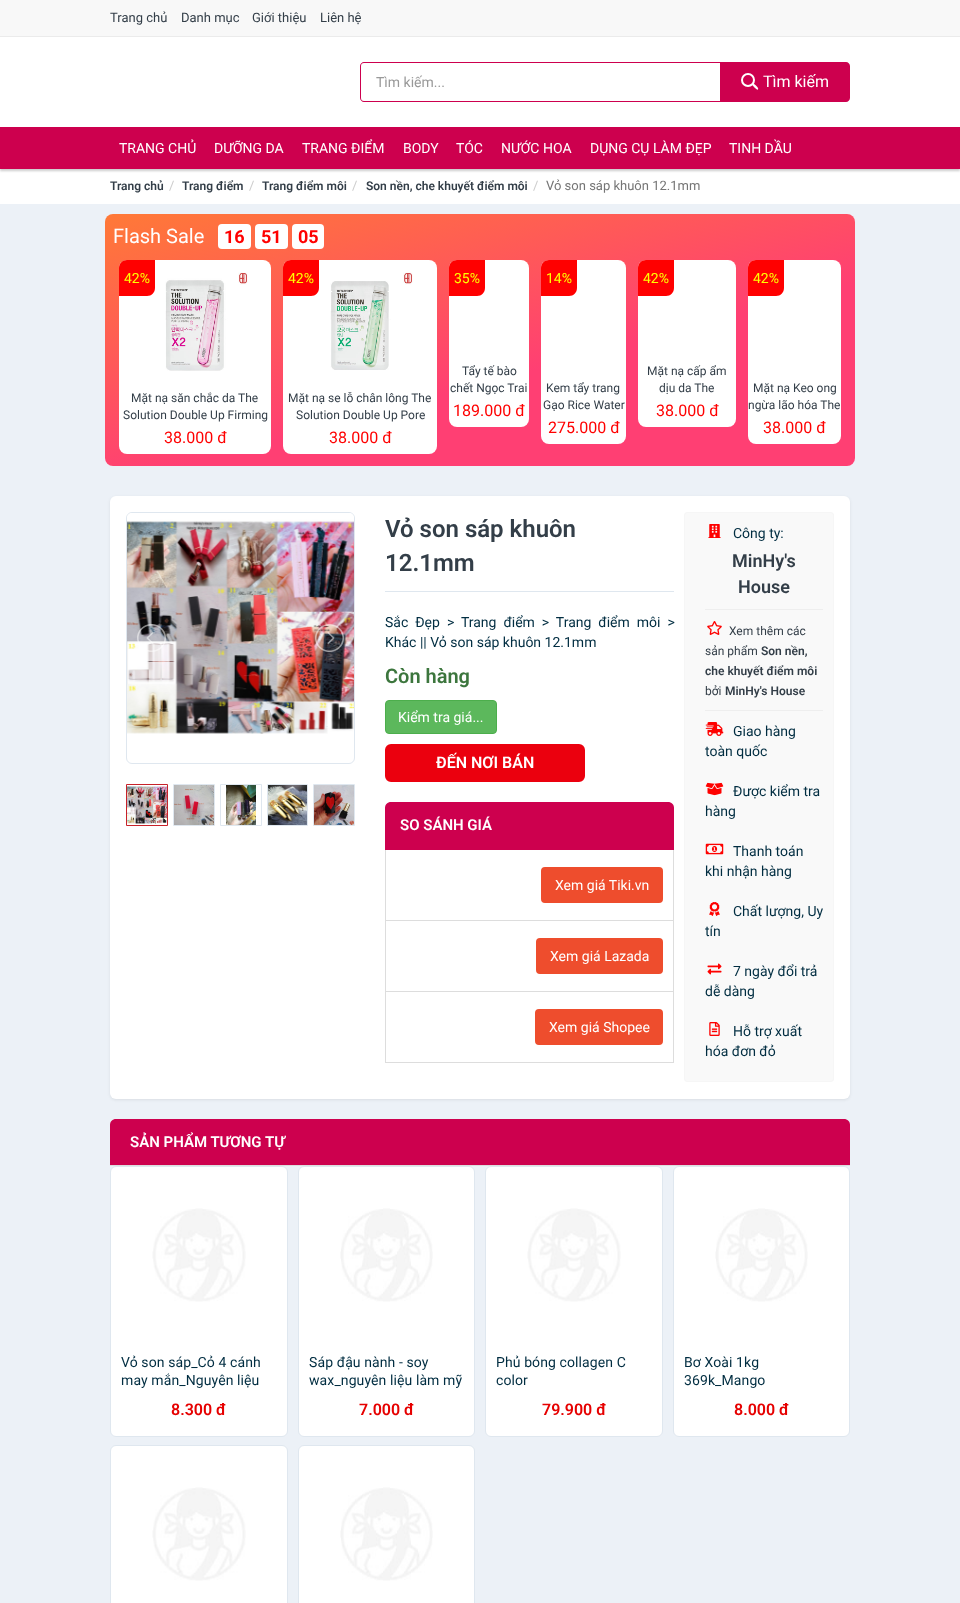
<svg xmlns="http://www.w3.org/2000/svg" width="960" height="1603">
<style>
.a{font:13px Roboto;fill:#333e48}
.b{font:14px Roboto;fill:#999}
.c{font:16px Roboto;fill:#fff}
.d{font:14px Roboto;fill:#fff}
.e{font:600 12px Roboto;fill:#333e48}
.f{font:13px Roboto;fill:#ccc}
.g{font:13px Roboto;fill:#757575}
.h{font:20px Roboto;fill:#fff}
.i{font:bold 18px Roboto;fill:#f00}
.j{font:14px Roboto;fill:#ff0}
.k{font:12px Roboto;fill:#333e48}
.l{font:16px Roboto;fill:#f00}
.m{font:600 24px Roboto;fill:#333e48}
.n{font:14px Roboto;fill:#012d41}
.o{font:600 20px Roboto;fill:#3c763d}
.p{font:600 16px Roboto;fill:#fff}
.q{font:600 15px Roboto;fill:#fff}
.r{font:600 18px Roboto;fill:#333e48}
.s{font:14px Roboto;letter-spacing:0.1px;fill:#012d41}
.t{font:600 16px Roboto;fill:#e60000}
</style>
<defs>
<linearGradient id="g1" gradientUnits="userSpaceOnUse" x1="423" y1="129" x2="537" y2="551"><stop offset="0" stop-color="#ff7937"/><stop offset="0.6" stop-color="#ff3f73"/></linearGradient>
</defs>
<rect width="100%" height="100%" fill="#fff"/>
<path fill="#f8f8f8" d="M0 0h960v36H0z"/>
<path fill="#ebebeb" d="M0 36h960v1H0z"/>
<path fill="#cd004e" fill-rule="evenodd" d="M364 62h357v40h-357c-2 0-4-2-4-4v-32c0-2 2-4 4-4zm0 1h357v38h-357c-2 0-3-1-3-3v-32c0-2 1-3 3-3z"/>
<path fill="#cd004e" d="M720 62h126c2 0 4 2 4 4v32c0 2-2 4-4 4h-126z"/>
<circle fill="none" stroke="#fff" stroke-width="2" cx="748" cy="80" r="6"/>
<path fill="#fff" d="M753 83c1 1 6.5 5 5 6.5c-1 1-5.5-4-6-5z"/>
<path fill="#00000033" filter="blur(1px)" d="M0 129h960v42H0z"/>
<path fill="#cd004e" d="M0 127h960v42H0z"/>
<path fill="#ecf1f7" d="M0 204h960v1399H0z"/>
<rect fill="url(#g1)" x="105" y="214" width="750" height="252" rx="8"/>
<rect fill="#fff" x="218" y="224" width="33" height="25" rx="4"/>
<rect fill="#fff" x="255" y="224" width="33" height="25" rx="4"/>
<rect fill="#fff" x="292" y="224" width="32" height="25" rx="4"/>
<rect fill="#fff" x="119" y="260" width="152" height="194" rx="8"/>
<path fill="#f00" d="M127 260h28v28c0 4.5-3.5 8-8 8h-28v-28c0-4.5 3.5-8 8-8z"/>
<image href="1.png" x="165" y="272" width="83" height="99"/>
<rect fill="#fff" x="283" y="260" width="154" height="194" rx="8"/>
<path fill="#f00" d="M291 260h28v28c0 4.5-3.5 8-8 8h-28v-28c0-4.5 3.5-8 8-8z"/>
<image href="2.png" x="330" y="272" width="83" height="98"/>
<rect fill="#fff" x="449" y="260" width="80" height="167" rx="8"/>
<path fill="#f00" d="M457 260h28v28c0 4.5-3.5 8-8 8h-28v-28c0-4.5 3.5-8 8-8z"/>
<rect fill="#fff" x="541" y="260" width="85" height="184" rx="8"/>
<path fill="#f00" d="M549 260h28v28c0 4.5-3.5 8-8 8h-28v-28c0-4.5 3.5-8 8-8z"/>
<rect fill="#fff" x="638" y="260" width="98" height="167" rx="8"/>
<path fill="#f00" d="M646 260h28v28c0 4.5-3.5 8-8 8h-28v-28c0-4.5 3.5-8 8-8z"/>
<rect fill="#fff" x="748" y="260" width="93" height="184" rx="8"/>
<path fill="#f00" d="M756 260h28v28c0 4.5-3.5 8-8 8h-28v-28c0-4.5 3.5-8 8-8z"/>
<rect fill="#00000014" filter="blur(1.5px)" x="110" y="497" width="740" height="603" rx="6"/>
<rect fill="#fff" x="110" y="496" width="740" height="603" rx="6"/>
<rect fill="none" stroke="#dfe7ef" x="126.5" y="512.5" width="228" height="251" rx="5.5"/>
<image href="3.png" x="127" y="513" width="227" height="221"/>
<image href="4.png" x="137" y="624" width="29" height="28"/>
<image href="5.png" x="315" y="624" width="29" height="28"/>
<path fill="none" stroke="#c72129" d="M126.5 784.5h41v41H126.5z"/>
<image href="6.png" x="127" y="786" width="40" height="38"/>
<path fill="none" stroke="#dfe7ef" d="M173.5 784.5h41v41H173.5z"/>
<image href="7.png" x="174" y="785" width="40" height="40"/>
<path fill="none" stroke="#dfe7ef" d="M220.5 784.5h41v41H220.5z"/>
<image href="8.png" x="226" y="785" width="30" height="40"/>
<path fill="none" stroke="#dfe7ef" d="M267.5 784.5h40v41H267.5z"/>
<image href="9.png" x="268" y="785" width="39" height="40"/>
<path fill="none" stroke="#dfe7ef" d="M313.5 784.5h41v41H313.5z"/>
<image href="10.png" x="314" y="785" width="40" height="40"/>
<path fill="#dfe7ef" d="M385 591h289v1H385z"/>
<rect fill="#5cb85c" stroke="#4cae4c" x="385.5" y="700.5" width="111" height="33" rx="3.5"/>
<rect fill="#eb000e" stroke="#eb000e" stroke-width="2" x="386" y="745" width="198" height="36" rx="5"/>
<path fill="#cd004e" d="M391 802h277c3.5 0 6 2.5 6 6v42h-289v-42c0-3.5 2.5-6 6-6z"/>
<path fill="#ddd" d="M673 850h1v213H673z"/>
<path fill="#ddd" d="M385 920h289v1H385z"/>
<path fill="#ddd" d="M385 850h1v71H385z"/>
<rect fill="#ee4d2d" stroke="#ee4d2d" stroke-width="2" x="542" y="868" width="120" height="34" rx="3"/>
<path fill="#ddd" d="M385 991h289v1H385z"/>
<path fill="#ddd" d="M385 921h1v71H385z"/>
<rect fill="#ee4d2d" stroke="#ee4d2d" stroke-width="2" x="537" y="939" width="125" height="34" rx="3"/>
<path fill="#ddd" d="M385 1062h289v1H385z"/>
<path fill="#ddd" d="M385 992h1v71H385z"/>
<rect fill="#ee4d2d" stroke="#ee4d2d" stroke-width="2" x="536" y="1010" width="126" height="34" rx="3"/>
<rect fill="#f9f9f9" stroke="#f6f6f6" x="684.5" y="512.5" width="149" height="569" rx="2.5"/>
<path fill="#eee" d="M705 710h118v1H705z"/>
<image href="11.png" x="708" y="524" width="13" height="14"/>
<path fill="#eee" d="M705 609h118v1H705z"/>
<image href="12.png" x="707" y="621" width="15" height="14"/>
<image href="13.png" x="705" y="722" width="19" height="14"/>
<image href="14.png" x="705" y="782" width="19" height="14"/>
<image href="15.png" x="705" y="843" width="19" height="12"/>
<image href="16.png" x="709" y="902" width="11" height="14"/>
<image href="17.png" x="707" y="963" width="15" height="12"/>
<image href="18.png" x="709" y="1022" width="11" height="14"/>
<path fill="#cd004e" d="M116 1119h728c3.5 0 6 2.5 6 6v41h-740v-41c0-3.5 2.5-6 6-6z"/>
<path fill="#ddd" d="M110 1165h740v1H110z"/>
<rect fill="#fff" stroke="#dfe7ef" x="110.5" y="1166.5" width="177" height="270" rx="5.5"/>
<image href="19.png" x="152" y="1208" width="94" height="94"/>
<rect fill="#fff" stroke="#dfe7ef" x="298.5" y="1166.5" width="176" height="270" rx="5.5"/>
<image href="20.png" x="340" y="1208" width="93" height="94"/>
<rect fill="#fff" stroke="#dfe7ef" x="485.5" y="1166.5" width="177" height="270" rx="5.5"/>
<image href="21.png" x="527" y="1208" width="94" height="94"/>
<rect fill="#fff" stroke="#dfe7ef" x="673.5" y="1166.5" width="176" height="270" rx="5.5"/>
<image href="20.png" x="715" y="1208" width="93" height="94"/>
<rect fill="#fff" stroke="#dfe7ef" x="110.5" y="1445.5" width="177" height="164" rx="5.5"/>
<image href="19.png" x="152" y="1487" width="94" height="94"/>
<rect fill="#fff" stroke="#dfe7ef" x="298.5" y="1445.5" width="176" height="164" rx="5.5"/>
<image href="20.png" x="340" y="1487" width="93" height="94"/>
<text class="a" x="110" y="22">Trang chủ</text>
<text class="a" x="181" y="22">Danh mục</text>
<text class="a" x="252" y="22">Giới thiệu</text>
<text class="a" x="320" y="22">Liên hệ</text>
<text class="b" x="376" y="87">Tìm kiếm...</text>
<text class="c" x="763" y="87">Tìm kiếm</text>
<text class="d" x="119" y="153">TRANG CHỦ</text>
<text class="d" x="214" y="153">DƯỠNG DA</text>
<text class="d" x="302" y="153">TRANG ĐIỂM</text>
<text class="d" x="403" y="153">BODY</text>
<text class="d" x="456" y="153">TÓC</text>
<text class="d" x="501" y="153">NƯỚC HOA</text>
<text class="d" x="590" y="153">DỤNG CỤ LÀM ĐẸP</text>
<text class="d" x="729" y="153">TINH DẦU</text>
<text class="e" x="110" y="190">Trang chủ</text>
<text class="f" x="169" y="190">/</text>
<text class="e" x="182" y="190">Trang điểm</text>
<text class="f" x="249" y="190">/</text>
<text class="e" x="262" y="190">Trang điểm môi</text>
<text class="f" x="352" y="190">/</text>
<text class="e" x="366" y="190">Son nền, che khuyết điểm môi</text>
<text class="f" x="533" y="190">/</text>
<text class="g" x="546" y="190">Vỏ son sáp khuôn 12.1mm</text>
<text class="h" x="113" y="243">Flash Sale</text>
<text class="i" x="224" y="243">16</text>
<text class="i" x="261" y="243">51</text>
<text class="i" x="298" y="243">05</text>
<text class="j" x="124" y="283">42%</text>
<text class="k" x="131" y="402">Mặt nạ săn chắc da The</text>
<text class="k" x="123" y="419">Solution Double Up Firming</text>
<text class="l" x="164" y="443">38.000 đ</text>
<text class="j" x="288" y="283">42%</text>
<text class="k" x="288" y="402">Mặt nạ se lỗ chân lông The</text>
<text class="k" x="296" y="419">Solution Double Up Pore</text>
<text class="l" x="329" y="443">38.000 đ</text>
<text class="j" x="454" y="283">35%</text>
<text class="k" x="462" y="375">Tẩy tế bào</text>
<text class="k" x="450" y="392">chết Ngọc Trai</text>
<text class="l" x="453" y="416">189.000 đ</text>
<text class="j" x="546" y="283">14%</text>
<text class="k" x="546" y="392">Kem tẩy trang</text>
<text class="k" x="543" y="409">Gạo Rice Water</text>
<text class="l" x="548" y="433">275.000 đ</text>
<text class="j" x="643" y="283">42%</text>
<text class="k" x="647" y="375">Mặt nạ cấp ẩm</text>
<text class="k" x="659" y="392">dịu da The</text>
<text class="l" x="656" y="416">38.000 đ</text>
<text class="j" x="753" y="283">42%</text>
<text class="k" x="753" y="392">Mặt nạ Keo ong</text>
<text class="k" x="748" y="409">ngừa lão hóa The</text>
<text class="l" x="763" y="433">38.000 đ</text>
<text class="m" x="385" y="537">Vỏ son sáp khuôn</text>
<text class="m" x="385" y="571">12.1mm</text>
<text class="n" x="385" y="627" word-spacing="3.5">Sắc Đẹp &gt; Trang điểm &gt; Trang điểm môi &gt;</text>
<text class="n" x="385" y="647">Khác || Vỏ son sáp khuôn 12.1mm</text>
<text class="o" x="385" y="683">Còn hàng</text>
<text class="d" x="398" y="722">Kiểm tra giá...</text>
<text class="p" x="436" y="768">ĐẾN NƠI BÁN</text>
<text class="q" x="400" y="830">SO SÁNH GIÁ</text>
<text class="d" x="555" y="890">Xem giá Tiki.vn</text>
<text class="d" x="550" y="961">Xem giá Lazada</text>
<text class="d" x="549" y="1032">Xem giá Shopee</text>
<text class="n" x="733" y="538">Công ty:</text>
<text class="r" x="732" y="567">MinHy's</text>
<text class="r" x="738" y="593">House</text>
<text class="k" x="729" y="635">Xem thêm các</text>
<text class="k" x="705" y="655">sản phẩm</text>
<text class="e" x="761" y="655">Son nền,</text>
<text class="e" x="705" y="675">che khuyết điểm môi</text>
<text class="k" x="705" y="695">bởi</text>
<text class="e" x="725" y="695">MinHy's House</text>
<text class="n" x="733" y="736">Giao hàng</text>
<text class="n" x="705" y="756">toàn quốc</text>
<text class="n" x="733" y="796">Được kiểm tra</text>
<text class="n" x="705" y="816">hàng</text>
<text class="n" x="733" y="856">Thanh toán</text>
<text class="n" x="705" y="876">khi nhận hàng</text>
<text class="n" x="733" y="916">Chất lượng, Uy</text>
<text class="n" x="705" y="936">tín</text>
<text class="n" x="733" y="976">7 ngày đổi trả</text>
<text class="n" x="705" y="996">dễ dàng</text>
<text class="n" x="733" y="1036">Hỗ trợ xuất</text>
<text class="n" x="705" y="1056">hóa đơn đỏ</text>
<text class="q" x="130" y="1147">SẢN PHẨM TƯƠNG TỰ</text>
<text class="s" x="121" y="1367">Vỏ son sáp_Cỏ 4 cánh</text>
<text class="s" x="121" y="1385">may mắn_Nguyên liệu</text>
<text class="t" x="171" y="1415">8.300 đ</text>
<text class="s" x="309" y="1367">Sáp đậu nành - soy</text>
<text class="s" x="309" y="1385">wax_nguyên liệu làm mỹ</text>
<text class="t" x="359" y="1415">7.000 đ</text>
<text class="s" x="496" y="1367">Phủ bóng collagen C</text>
<text class="s" x="496" y="1385">color</text>
<text class="t" x="542" y="1415">79.900 đ</text>
<text class="s" x="684" y="1367">Bơ Xoài 1kg</text>
<text class="s" x="684" y="1385">369k_Mango</text>
<text class="t" x="734" y="1415">8.000 đ</text>
</svg>
